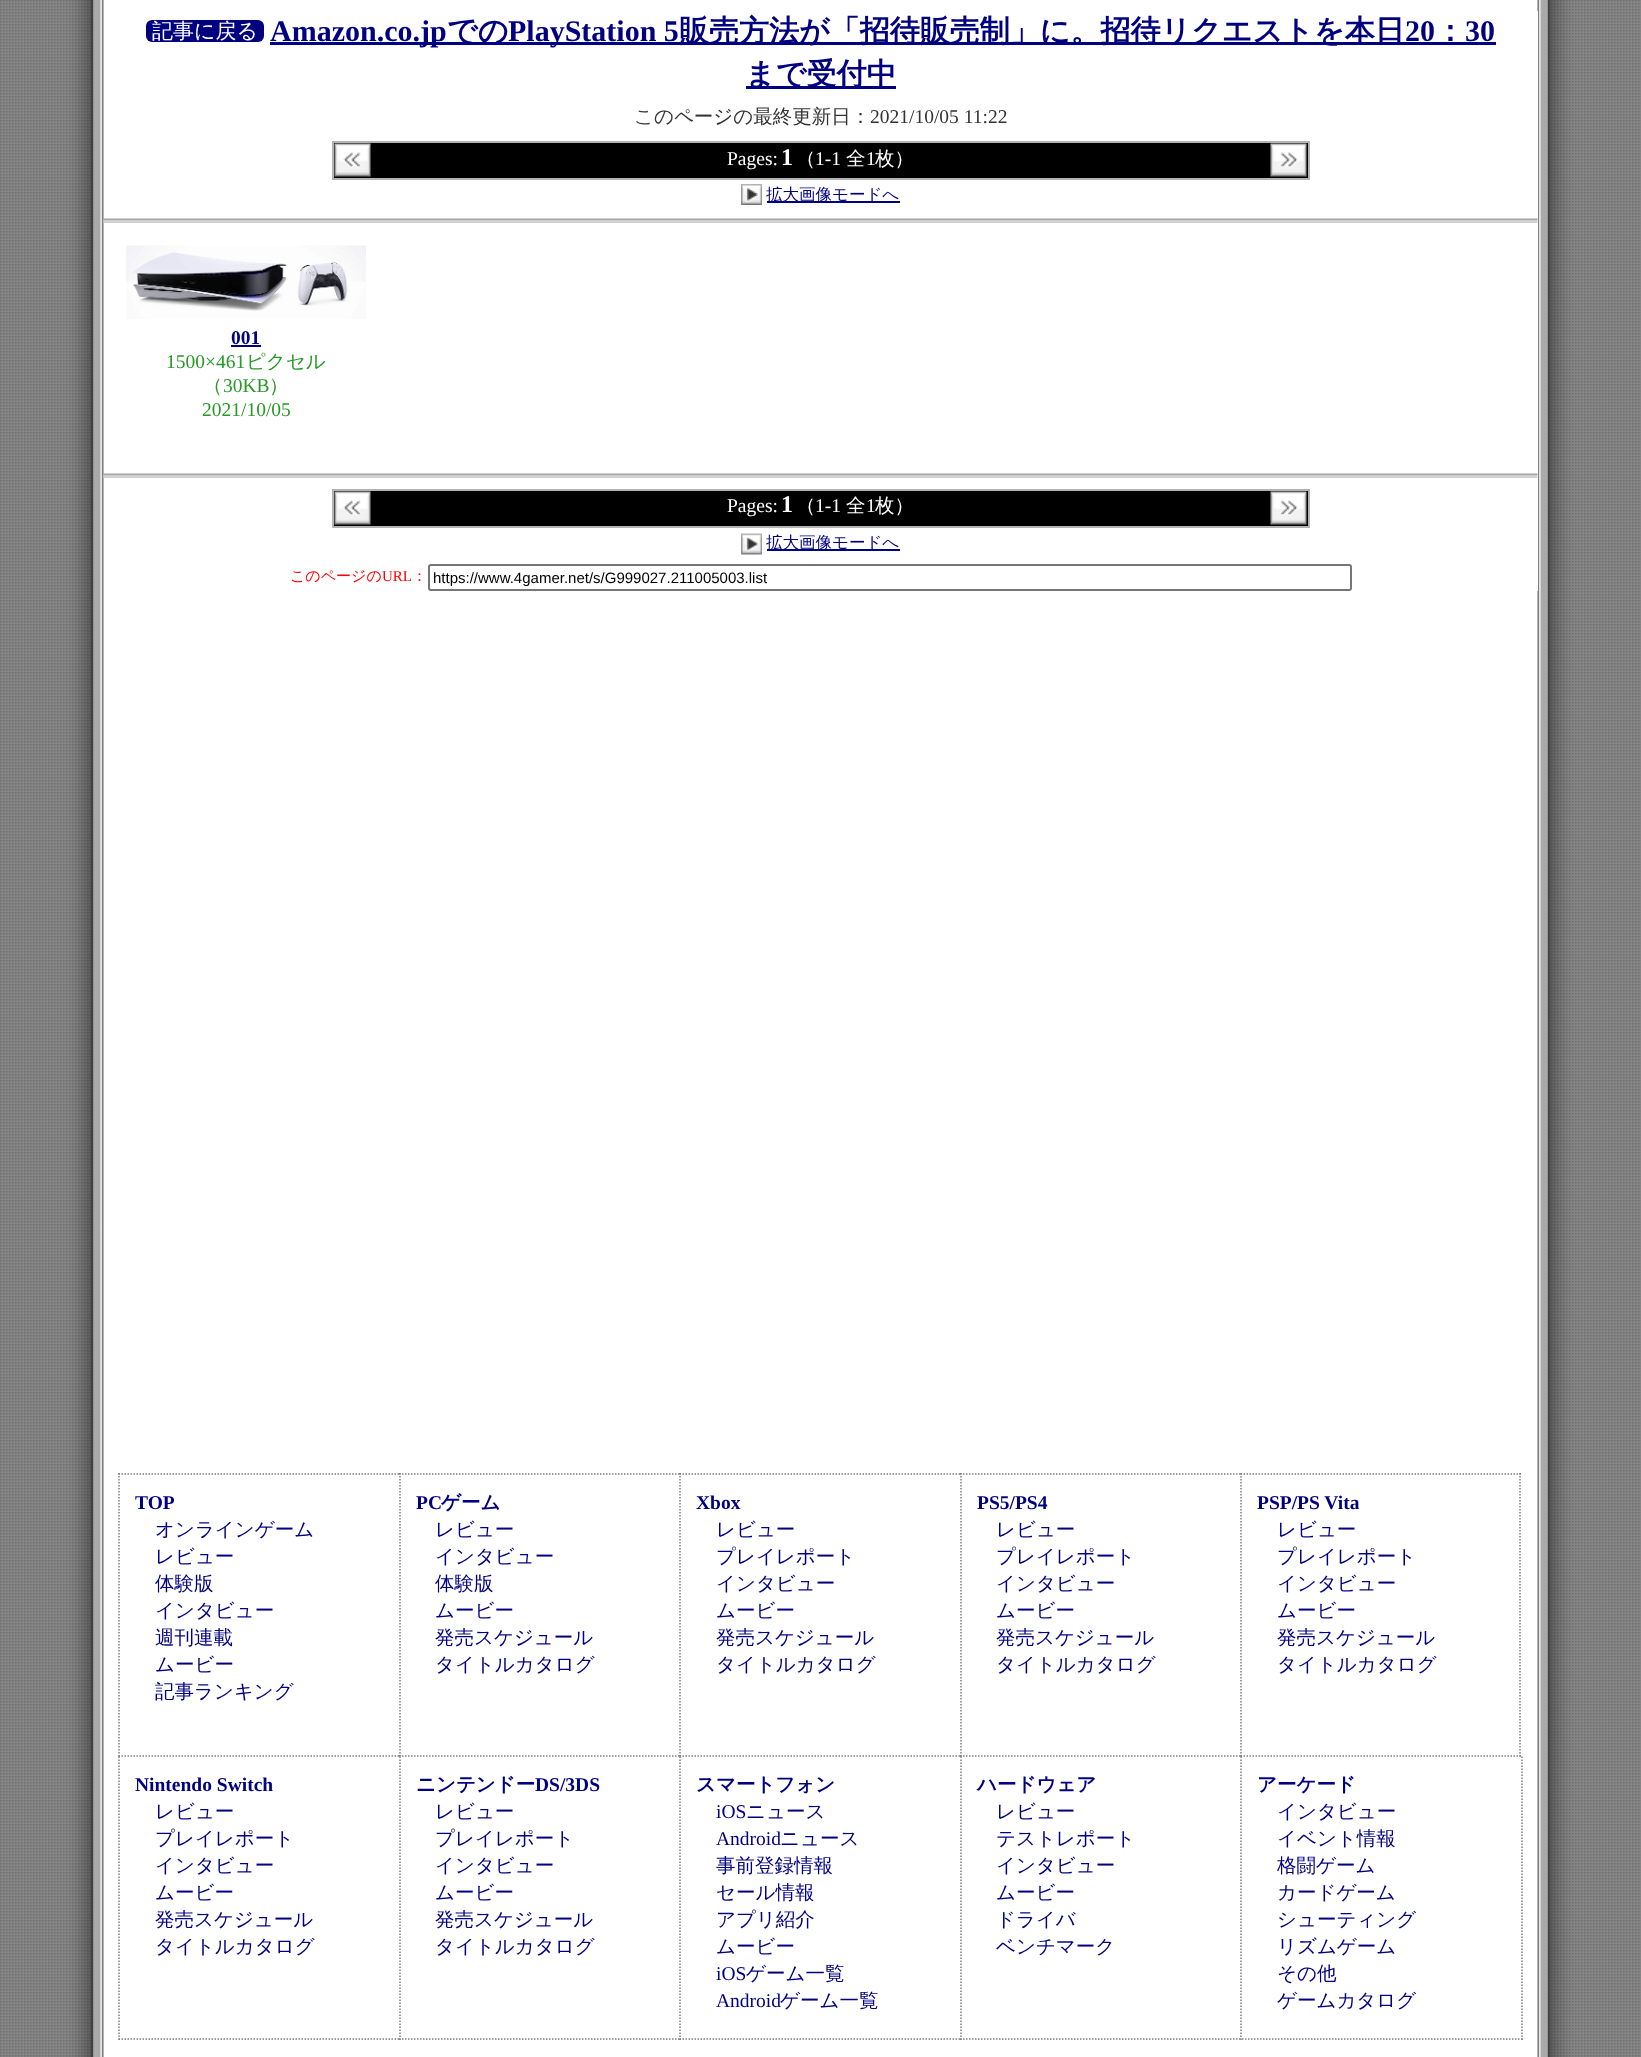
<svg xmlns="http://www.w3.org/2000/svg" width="1641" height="2057">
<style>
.a{font:500 21px WenQuanYi Zen Hei;fill:#fff}
.b{font:bold 30px Liberation Serif;fill:#000080}
.c{font:bold 30px WenQuanYi Zen Hei;fill:#000080}
.d{font:500 19.5px WenQuanYi Zen Hei;fill:#333}
.e{font:19.5px Liberation Serif;fill:#333}
.f{font:19.5px Liberation Serif;fill:#fff}
.g{font:bold 24px Liberation Serif;fill:#fff}
.h{font:500 19.5px WenQuanYi Zen Hei;fill:#fff}
.i{font:500 16.5px WenQuanYi Zen Hei;fill:#000080}
.j{font:bold 19.5px Liberation Serif;fill:#000080}
.k{font:19.5px Liberation Serif;fill:#269926}
.l{font:500 19.5px WenQuanYi Zen Hei;fill:#269926}
.m{font:500 15px WenQuanYi Zen Hei;fill:#f00}
.n{font:15px Liberation Serif;fill:#f00}
.o{font:15px Liberation Sans;fill:#000}
.p{font:500 19.5px WenQuanYi Zen Hei;fill:#000080}
.q{font:bold 19.5px WenQuanYi Zen Hei;fill:#000080}
.r{font:19.5px Liberation Serif;fill:#000080}
</style>
<rect width="100%" height="100%" fill="#fff"/>
<image href="1.png" x="0" y="0" width="1641" height="2057"/>
<path fill="#fff" d="M1537 11h1v580H1537z"/>
<image href="2.png" x="103" y="218" width="1435" height="5"/>
<rect fill="#000080" x="146" y="20" width="118" height="22" rx="6"/>
<path fill="#000080" d="M270 42h1226v3H270z"/>
<path fill="#000080" d="M746 86h150v3H746z"/>
<path fill="#000" stroke="#b3b3b3" stroke-width="2" d="M333 142h976v37H333z"/>
<image href="3.png" x="334" y="143" width="37" height="34"/>
<image href="4.png" x="1270" y="143" width="37" height="34"/>
<image href="5.png" x="741" y="184" width="21" height="21"/>
<path fill="#000080" d="M767 201h133v2H767z"/>
<image href="6.png" x="126" y="245" width="240" height="74"/>
<path fill="#000080" d="M231 345h30v2H231z"/>
<image href="7.png" x="103" y="473" width="1435" height="5"/>
<path fill="#000" stroke="#b3b3b3" stroke-width="2" d="M333 490h976v37H333z"/>
<image href="3.png" x="334" y="491" width="37" height="34"/>
<image href="4.png" x="1270" y="491" width="37" height="34"/>
<image href="8.png" x="741" y="533" width="21" height="22"/>
<path fill="#000080" d="M767 549h133v2H767z"/>
<rect fill="none" stroke="#767676" stroke-width="2" x="429" y="565" width="922" height="25" rx="2"/>
<path fill="none" stroke="#7f7f7f" stroke-width="1.5" stroke-dasharray="1.5 1.5" d="M118.5 1474h280.5"/>
<path fill="none" stroke="#7f7f7f" stroke-width="1.5" stroke-dasharray="1.5 1.5" d="M118.5 1756h280.5"/>
<path fill="none" stroke="#7f7f7f" stroke-width="1.5" stroke-dasharray="1.5 1.5" d="M119 1473v283.5"/>
<path fill="none" stroke="#7f7f7f" stroke-width="1.5" stroke-dasharray="1.5 1.5" d="M399 1474h280.5"/>
<path fill="none" stroke="#7f7f7f" stroke-width="1.5" stroke-dasharray="1.5 1.5" d="M399 1756h280.5"/>
<path fill="none" stroke="#7f7f7f" stroke-width="1.5" stroke-dasharray="1.5 1.5" d="M400 1473v283.5"/>
<path fill="none" stroke="#7f7f7f" stroke-width="1.5" stroke-dasharray="1.5 1.5" d="M679.5 1474h280.5"/>
<path fill="none" stroke="#7f7f7f" stroke-width="1.5" stroke-dasharray="1.5 1.5" d="M679.5 1756h280.5"/>
<path fill="none" stroke="#7f7f7f" stroke-width="1.5" stroke-dasharray="1.5 1.5" d="M680 1473v283.5"/>
<path fill="none" stroke="#7f7f7f" stroke-width="1.5" stroke-dasharray="1.5 1.5" d="M960 1474h280.5"/>
<path fill="none" stroke="#7f7f7f" stroke-width="1.5" stroke-dasharray="1.5 1.5" d="M960 1756h280.5"/>
<path fill="none" stroke="#7f7f7f" stroke-width="1.5" stroke-dasharray="1.5 1.5" d="M961 1473v283.5"/>
<path fill="none" stroke="#7f7f7f" stroke-width="1.5" stroke-dasharray="1.5 1.5" d="M1240.5 1474h280.5"/>
<path fill="none" stroke="#7f7f7f" stroke-width="1.5" stroke-dasharray="1.5 1.5" d="M1520 1473v283.5"/>
<path fill="none" stroke="#7f7f7f" stroke-width="1.5" stroke-dasharray="1.5 1.5" d="M1240.5 1756h280.5"/>
<path fill="none" stroke="#7f7f7f" stroke-width="1.5" stroke-dasharray="1.5 1.5" d="M1241 1473v283.5"/>
<path fill="none" stroke="#7f7f7f" stroke-width="1.5" stroke-dasharray="1.5 1.5" d="M118.5 2039h280.5"/>
<path fill="none" stroke="#7f7f7f" stroke-width="1.5" stroke-dasharray="1.5 1.5" d="M119 1756.5v283.5"/>
<path fill="none" stroke="#7f7f7f" stroke-width="1.5" stroke-dasharray="1.5 1.5" d="M399 2039h280.5"/>
<path fill="none" stroke="#7f7f7f" stroke-width="1.5" stroke-dasharray="1.5 1.5" d="M400 1756.5v283.5"/>
<path fill="none" stroke="#7f7f7f" stroke-width="1.5" stroke-dasharray="1.5 1.5" d="M679.5 2039h280.5"/>
<path fill="none" stroke="#7f7f7f" stroke-width="1.5" stroke-dasharray="1.5 1.5" d="M680 1756.5v283.5"/>
<path fill="none" stroke="#7f7f7f" stroke-width="1.5" stroke-dasharray="1.5 1.5" d="M1241 1756.5v283.5"/>
<path fill="none" stroke="#7f7f7f" stroke-width="1.5" stroke-dasharray="1.5 1.5" d="M960 2039h282"/>
<path fill="none" stroke="#7f7f7f" stroke-width="1.5" stroke-dasharray="1.5 1.5" d="M961 1756.5v283.5"/>
<path fill="none" stroke="#7f7f7f" stroke-width="1.5" stroke-dasharray="1.5 1.5" d="M1522 1756.5v283.5"/>
<path fill="none" stroke="#7f7f7f" stroke-width="1.5" stroke-dasharray="1.5 1.5" d="M1242 2039h280.5"/>
<text class="a" x="152" y="38">記事に戻る</text>
<text class="b" x="270" y="41">Amazon.co.jp</text>
<text class="c" x="447" y="41">での</text>
<text class="b" x="508" y="41">PlayStation 5</text>
<text class="c" x="679" y="41">販売方法が「招待販売制」に。招待リクエストを本日</text>
<text class="b" x="1405" y="41">20</text>
<text class="c" x="1435" y="41">：</text>
<text class="b" x="1465" y="41">30</text>
<text class="c" x="745" y="84">まで受付中</text>
<text class="d" x="634" y="123">このページの最終更新日：</text>
<text class="e" x="870" y="123">2021/10/05 11:22</text>
<text class="f" x="727" y="165">Pages:</text>
<text class="g" x="781" y="165">1</text>
<text class="h" x="796" y="165">（</text>
<text class="f" x="815" y="165">1-1</text>
<text class="h" x="846" y="165">全</text>
<text class="f" x="866" y="165">1</text>
<text class="h" x="875" y="165">枚）</text>
<text class="i" x="766" y="200">拡大画像モードへ</text>
<text class="j" x="231" y="344">001</text>
<text class="k" x="166" y="368">1500×461</text>
<text class="l" x="246" y="368">ピクセル</text>
<text class="l" x="203" y="392">（</text>
<text class="k" x="223" y="392">30KB</text>
<text class="l" x="269" y="392">）</text>
<text class="k" x="202" y="416">2021/10/05</text>
<text class="f" x="727" y="512">Pages:</text>
<text class="g" x="781" y="512">1</text>
<text class="h" x="796" y="512">（</text>
<text class="f" x="815" y="512">1-1</text>
<text class="h" x="846" y="512">全</text>
<text class="f" x="866" y="512">1</text>
<text class="h" x="875" y="512">枚）</text>
<text class="i" x="766" y="548">拡大画像モードへ</text>
<text class="m" x="290" y="581">このページの</text>
<text class="n" x="382" y="581">URL</text>
<text class="m" x="412" y="581">：</text>
<text class="o" x="433" y="583">https://www.4gamer.net/s/G999027.211005003.list</text>
<text class="j" x="135" y="1509">TOP</text>
<text class="p" x="155" y="1536">オンラインゲーム</text>
<text class="p" x="155" y="1563">レビュー</text>
<text class="p" x="155" y="1590">体験版</text>
<text class="p" x="155" y="1617">インタビュー</text>
<text class="p" x="155" y="1644">週刊連載</text>
<text class="p" x="155" y="1671">ムービー</text>
<text class="p" x="155" y="1698">記事ランキング</text>
<text class="j" x="416" y="1509">PC</text>
<text class="q" x="441" y="1509">ゲーム</text>
<text class="p" x="435" y="1536">レビュー</text>
<text class="p" x="435" y="1563">インタビュー</text>
<text class="p" x="435" y="1590">体験版</text>
<text class="p" x="435" y="1617">ムービー</text>
<text class="p" x="435" y="1644">発売スケジュール</text>
<text class="p" x="435" y="1671">タイトルカタログ</text>
<text class="j" x="696" y="1509">Xbox</text>
<text class="p" x="716" y="1536">レビュー</text>
<text class="p" x="716" y="1563">プレイレポート</text>
<text class="p" x="716" y="1590">インタビュー</text>
<text class="p" x="716" y="1617">ムービー</text>
<text class="p" x="716" y="1644">発売スケジュール</text>
<text class="p" x="716" y="1671">タイトルカタログ</text>
<text class="j" x="977" y="1509">PS5/PS4</text>
<text class="p" x="996" y="1536">レビュー</text>
<text class="p" x="996" y="1563">プレイレポート</text>
<text class="p" x="996" y="1590">インタビュー</text>
<text class="p" x="996" y="1617">ムービー</text>
<text class="p" x="996" y="1644">発売スケジュール</text>
<text class="p" x="996" y="1671">タイトルカタログ</text>
<text class="j" x="1257" y="1509">PSP/PS Vita</text>
<text class="p" x="1277" y="1536">レビュー</text>
<text class="p" x="1277" y="1563">プレイレポート</text>
<text class="p" x="1277" y="1590">インタビュー</text>
<text class="p" x="1277" y="1617">ムービー</text>
<text class="p" x="1277" y="1644">発売スケジュール</text>
<text class="p" x="1277" y="1671">タイトルカタログ</text>
<text class="j" x="135" y="1791">Nintendo Switch</text>
<text class="p" x="155" y="1818">レビュー</text>
<text class="p" x="155" y="1845">プレイレポート</text>
<text class="p" x="155" y="1872">インタビュー</text>
<text class="p" x="155" y="1899">ムービー</text>
<text class="p" x="155" y="1926">発売スケジュール</text>
<text class="p" x="155" y="1953">タイトルカタログ</text>
<text class="q" x="416" y="1791">ニンテンドー</text>
<text class="j" x="535" y="1791">DS/3DS</text>
<text class="p" x="435" y="1818">レビュー</text>
<text class="p" x="435" y="1845">プレイレポート</text>
<text class="p" x="435" y="1872">インタビュー</text>
<text class="p" x="435" y="1899">ムービー</text>
<text class="p" x="435" y="1926">発売スケジュール</text>
<text class="p" x="435" y="1953">タイトルカタログ</text>
<text class="q" x="696" y="1791">スマートフォン</text>
<text class="r" x="716" y="1818">iOS</text>
<text class="p" x="746" y="1818">ニュース</text>
<text class="r" x="716" y="1845">Android</text>
<text class="p" x="780" y="1845">ニュース</text>
<text class="p" x="716" y="1872">事前登録情報</text>
<text class="p" x="716" y="1899">セール情報</text>
<text class="p" x="716" y="1926">アプリ紹介</text>
<text class="p" x="716" y="1953">ムービー</text>
<text class="r" x="716" y="1980">iOS</text>
<text class="p" x="746" y="1980">ゲーム一覧</text>
<text class="r" x="716" y="2007">Android</text>
<text class="p" x="780" y="2007">ゲーム一覧</text>
<text class="q" x="977" y="1791">ハードウェア</text>
<text class="p" x="996" y="1818">レビュー</text>
<text class="p" x="996" y="1845">テストレポート</text>
<text class="p" x="996" y="1872">インタビュー</text>
<text class="p" x="996" y="1899">ムービー</text>
<text class="p" x="996" y="1926">ドライバ</text>
<text class="p" x="996" y="1953">ベンチマーク</text>
<text class="q" x="1257" y="1791">アーケード</text>
<text class="p" x="1277" y="1818">インタビュー</text>
<text class="p" x="1277" y="1845">イベント情報</text>
<text class="p" x="1277" y="1872">格闘ゲーム</text>
<text class="p" x="1277" y="1899">カードゲーム</text>
<text class="p" x="1277" y="1926">シューティング</text>
<text class="p" x="1277" y="1953">リズムゲーム</text>
<text class="p" x="1277" y="1980">その他</text>
<text class="p" x="1277" y="2007">ゲームカタログ</text>
</svg>
